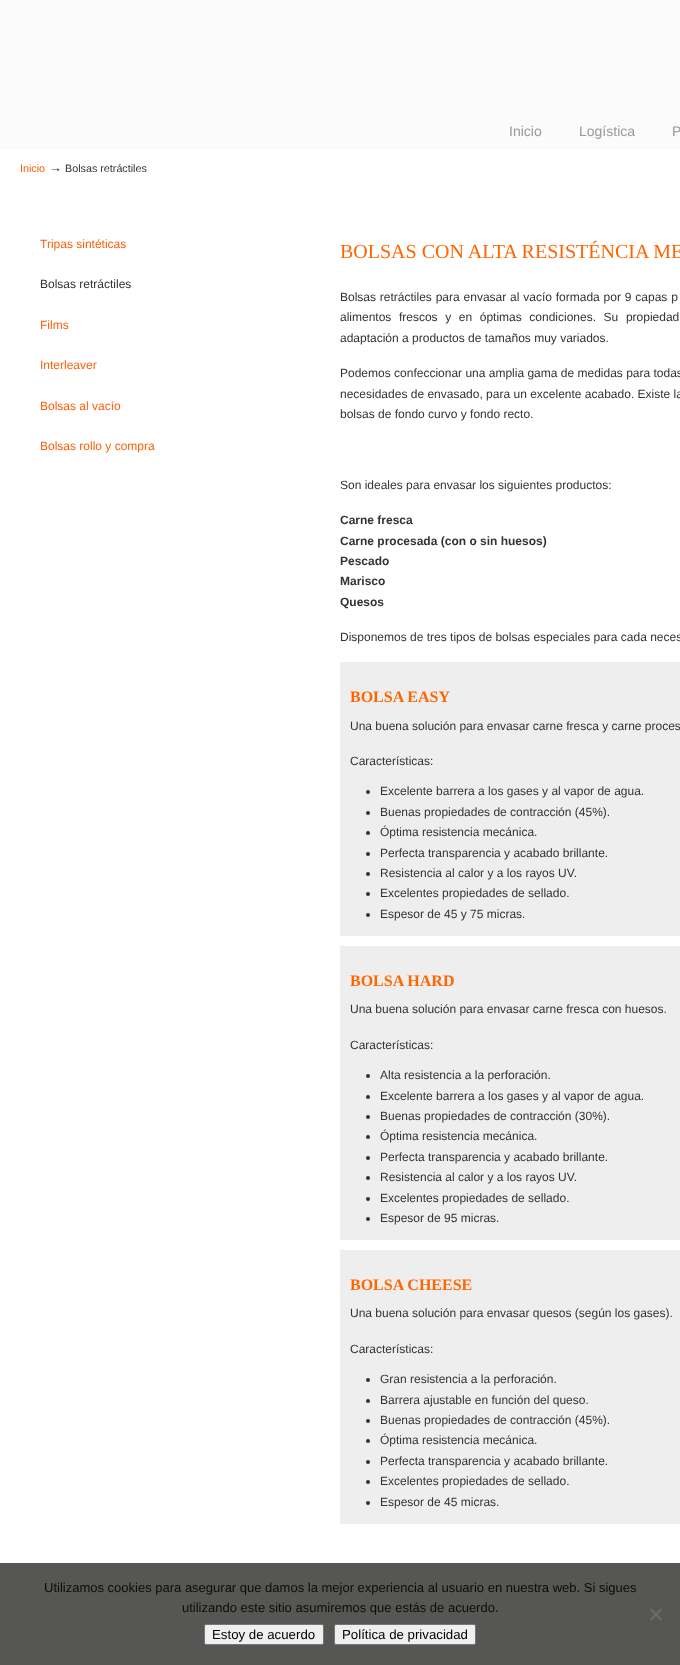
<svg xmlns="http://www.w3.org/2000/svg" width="680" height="1665">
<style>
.a{font:14px Liberation Sans;fill:#999}
.b{font:10.75px Liberation Sans;fill:#fe5e08}
.c{font:13px Liberation Sans;fill:#333}
.d{font:10.75px Liberation Sans;fill:#333}
.e{font:12px Liberation Sans;fill:#fe5e08}
.f{font:12px Liberation Sans;fill:#333}
.g{font:20px Liberation Serif;fill:#f60}
.h{font:bold 12px Liberation Sans;fill:#333}
.i{font:bold 16px Liberation Serif;fill:#f60}
.j{font:13px Liberation Sans;fill:#0c0c0c}
.k{font:13.25px Liberation Sans;fill:#000}
</style>
<rect width="100%" height="100%" fill="#fff"/>
<path fill="#fbfbfb" d="M0 0h680v150H0z"/>
<path fill="#eee" d="M340 662h340v274H340z"/>
<circle fill="#333" cx="368" cy="792" r="2"/>
<circle fill="#333" cx="368" cy="813" r="2"/>
<circle fill="#333" cx="368" cy="833" r="2"/>
<circle fill="#333" cx="368" cy="854" r="2"/>
<circle fill="#333" cx="368" cy="874" r="2"/>
<circle fill="#333" cx="368" cy="894" r="2"/>
<circle fill="#333" cx="368" cy="915" r="2"/>
<path fill="#eee" d="M340 946h340v294H340z"/>
<circle fill="#333" cx="368" cy="1076" r="2"/>
<circle fill="#333" cx="368" cy="1097" r="2"/>
<circle fill="#333" cx="368" cy="1117" r="2"/>
<circle fill="#333" cx="368" cy="1137" r="2"/>
<circle fill="#333" cx="368" cy="1158" r="2"/>
<circle fill="#333" cx="368" cy="1178" r="2"/>
<circle fill="#333" cx="368" cy="1199" r="2"/>
<circle fill="#333" cx="368" cy="1219" r="2"/>
<path fill="#eee" d="M340 1250h340v274H340z"/>
<circle fill="#333" cx="368" cy="1380" r="2"/>
<circle fill="#333" cx="368" cy="1401" r="2"/>
<circle fill="#333" cx="368" cy="1421" r="2"/>
<circle fill="#333" cx="368" cy="1441" r="2"/>
<circle fill="#333" cx="368" cy="1462" r="2"/>
<circle fill="#333" cx="368" cy="1482" r="2"/>
<circle fill="#333" cx="368" cy="1503" r="2"/>
<path fill="#565655" d="M0 1563h680v102H0z"/>
<path fill="#6b6b6b" d="M660.5 1608.5l1.5 1.5l-10.5 10.5l-1.5-1.5z"/>
<path fill="#6b6b6b" d="M650 1610l1.5-1.5l10.5 10.5l-1.5 1.5z"/>
<rect fill="#efefef" stroke="#767676" x="204.5" y="1624.5" width="119" height="20" rx="1.5"/>
<rect fill="#efefef" stroke="#767676" x="334.5" y="1624.5" width="141" height="20" rx="1.5"/>
<text class="a" x="509" y="136">Inicio</text>
<text class="a" x="579" y="136">Logística</text>
<text class="a" x="672" y="136">P</text>
<text class="b" x="20" y="172">Inicio</text>
<text class="c" x="49" y="172">→</text>
<text class="d" x="65" y="172">Bolsas retráctiles</text>
<text class="e" x="40" y="248">Tripas sintéticas</text>
<text class="f" x="40" y="288">Bolsas retráctiles</text>
<text class="e" x="40" y="329">Films</text>
<text class="e" x="40" y="369">Interleaver</text>
<text class="e" x="40" y="410">Bolsas al vacío</text>
<text class="e" x="40" y="450">Bolsas rollo y compra</text>
<text class="g" x="340" y="258">BOLSAS CON ALTA RESISTÉNCIA ME</text>
<text class="f" x="340" y="301" word-spacing="0.5">Bolsas retráctiles para envasar al vacío formada por 9 capas p</text>
<text class="f" x="340" y="321" word-spacing="4.25">alimentos frescos y en óptimas condiciones. Su propiedad</text>
<text class="f" x="340" y="342">adaptación a productos de tamaños muy variados.</text>
<text class="f" x="340" y="377">Podemos confeccionar una amplia gama de medidas para todas</text>
<text class="f" x="340" y="398">necesidades de envasado, para un excelente acabado. Existe la</text>
<text class="f" x="340" y="418">bolsas de fondo curvo y fondo recto.</text>
<text class="f" x="340" y="489">Son ideales para envasar los siguientes productos:</text>
<text class="h" x="340" y="524">Carne fresca</text>
<text class="h" x="340" y="545">Carne procesada (con o sin huesos)</text>
<text class="h" x="340" y="565">Pescado</text>
<text class="h" x="340" y="585">Marisco</text>
<text class="h" x="340" y="606">Quesos</text>
<text class="f" x="340" y="641">Disponemos de tres tipos de bolsas especiales para cada neces</text>
<text class="i" x="350" y="702">BOLSA EASY</text>
<text class="f" x="350" y="730">Una buena solución para envasar carne fresca y carne proces</text>
<text class="f" x="350" y="765">Características:</text>
<text class="f" x="380" y="795">Excelente barrera a los gases y al vapor de agua.</text>
<text class="f" x="380" y="816">Buenas propiedades de contracción (45%).</text>
<text class="f" x="380" y="836">Óptima resistencia mecánica.</text>
<text class="f" x="380" y="857">Perfecta transparencia y acabado brillante.</text>
<text class="f" x="380" y="877">Resistencia al calor y a los rayos UV.</text>
<text class="f" x="380" y="897">Excelentes propiedades de sellado.</text>
<text class="f" x="380" y="918">Espesor de 45 y 75 micras.</text>
<text class="i" x="350" y="986">BOLSA HARD</text>
<text class="f" x="350" y="1013">Una buena solución para envasar carne fresca con huesos.</text>
<text class="f" x="350" y="1049">Características:</text>
<text class="f" x="380" y="1079">Alta resistencia a la perforación.</text>
<text class="f" x="380" y="1100">Excelente barrera a los gases y al vapor de agua.</text>
<text class="f" x="380" y="1120">Buenas propiedades de contracción (30%).</text>
<text class="f" x="380" y="1140">Óptima resistencia mecánica.</text>
<text class="f" x="380" y="1161">Perfecta transparencia y acabado brillante.</text>
<text class="f" x="380" y="1181">Resistencia al calor y a los rayos UV.</text>
<text class="f" x="380" y="1202">Excelentes propiedades de sellado.</text>
<text class="f" x="380" y="1222">Espesor de 95 micras.</text>
<text class="i" x="350" y="1290">BOLSA CHEESE</text>
<text class="f" x="350" y="1317">Una buena solución para envasar quesos (según los gases).</text>
<text class="f" x="350" y="1353">Características:</text>
<text class="f" x="380" y="1383">Gran resistencia a la perforación.</text>
<text class="f" x="380" y="1404">Barrera ajustable en función del queso.</text>
<text class="f" x="380" y="1424">Buenas propiedades de contracción (45%).</text>
<text class="f" x="380" y="1444">Óptima resistencia mecánica.</text>
<text class="f" x="380" y="1465">Perfecta transparencia y acabado brillante.</text>
<text class="f" x="380" y="1485">Excelentes propiedades de sellado.</text>
<text class="f" x="380" y="1506">Espesor de 45 micras.</text>
<text class="j" x="44" y="1592">Utilizamos cookies para asegurar que damos la mejor experiencia al usuario en nuestra web. Si sigues</text>
<text class="j" x="182" y="1612">utilizando este sitio asumiremos que estás de acuerdo.</text>
<text class="k" x="212" y="1639">Estoy de acuerdo</text>
<text class="k" x="342" y="1639">Política de privacidad</text>
</svg>
